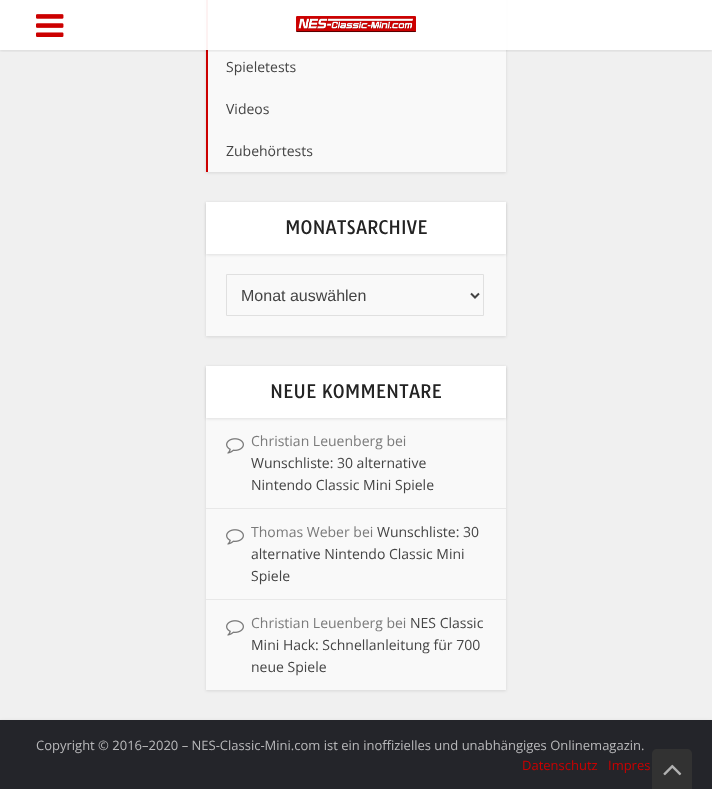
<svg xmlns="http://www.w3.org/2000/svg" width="712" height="789">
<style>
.a{font:14px Open Sans;fill:#444}
.b{font:18px Tauri;fill:#232323}
.c{font:16px Liberation Sans;fill:#444}
.d{font:14px Open Sans;fill:#7a7a7a}
.e{font:13px Open Sans;fill:#b9b9bb}
.f{font:13px Open Sans;fill:#c00}
</style>
<defs>
<clipPath id="clip1"><path d="M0 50h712v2H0z"/></clipPath>
</defs>
<rect width="100%" height="100%" fill="#f0f0f0"/>
<path fill="#0000001a" filter="blur(1.5px)" d="M206 -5h300v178H206z"/>
<path fill="#f9f9f9" d="M208 0h298v172H208z"/>
<path fill="#c00" d="M206 0h2v172H206z"/>
<g clip-path="url(#clip1)">
<path fill="#0000001a" filter="blur(1.5px)" d="M0 1h712v50H0z"/>
</g>
<path fill="#fffffff2" d="M0 0h712v50H0z"/>
<image href="1.png" x="36" y="14" width="28" height="23"/>
<image href="2.png" x="296" y="16" width="120" height="17"/>
<path fill="#0000001a" filter="blur(1.5px)" d="M206 203h300v134H206z"/>
<path fill="#f9f9f9" d="M206 254h300v82H206z"/>
<path fill="#0000001a" filter="blur(1.5px)" d="M206 203h300v52H206z"/>
<path fill="#fff" d="M206 202h300v52H206z"/>
<path fill="none" stroke="#e0e0e0" d="M226.5 274.5h257v41H226.5z"/>
<path fill="none" stroke="#444" stroke-width="2" d="M471 293.5l4 4l4-4"/>
<path fill="#0000001a" filter="blur(1.5px)" d="M206 367h300v324H206z"/>
<path fill="#f9f9f9" d="M206 418h300v272H206z"/>
<path fill="#0000001a" filter="blur(1.5px)" d="M206 367h300v52H206z"/>
<path fill="#fff" d="M206 366h300v52H206z"/>
<path fill="#e8e8e8" d="M206 508h300v1H206z"/>
<image href="3.png" x="226" y="438" width="18" height="16"/>
<path fill="#e8e8e8" d="M206 599h300v1H206z"/>
<image href="3.png" x="226" y="529" width="18" height="16"/>
<image href="3.png" x="226" y="620" width="18" height="16"/>
<path fill="#00000033" filter="blur(2px)" d="M0 722h712v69H0z"/>
<path fill="#24252a" d="M0 720h712v69H0z"/>
<path fill="#323232" d="M657 749h30c3 0 5 2 5 5v35h-40v-35c0-3 2-5 5-5z"/>
<image href="4.png" x="663" y="764" width="19" height="12"/>
<text class="a" x="226" y="72">Spieletests</text>
<text class="a" x="226" y="114">Videos</text>
<text class="a" x="226" y="156">Zubehörtests</text>
<text class="b" x="285" y="234">MONATSARCHIVE</text>
<text class="c" x="241" y="301">Monat auswählen</text>
<text class="b" x="270" y="398">NEUE KOMMENTARE</text>
<text class="d" x="251" y="446">Christian Leuenberg bei</text>
<text class="a" x="251" y="468">Wunschliste: 30 alternative</text>
<text class="a" x="251" y="490">Nintendo Classic Mini Spiele</text>
<text class="d" x="251" y="537">Thomas Weber bei</text>
<text class="a" x="377" y="537">Wunschliste: 30</text>
<text class="a" x="251" y="559">alternative Nintendo Classic Mini</text>
<text class="a" x="251" y="581">Spiele</text>
<text class="d" x="251" y="628">Christian Leuenberg bei</text>
<text class="a" x="410" y="628">NES Classic</text>
<text class="a" x="251" y="650">Mini Hack: Schnellanleitung für 700</text>
<text class="a" x="251" y="672">neue Spiele</text>
<text class="e" x="36" y="750">Copyright © 2016–2020 – NES-Classic-Mini.com ist ein inoffizielles und unabhängiges Onlinemagazin.</text>
<text class="f" x="522" y="770">Datenschutz</text>
<text class="f" x="608" y="770">Impres</text>
</svg>
